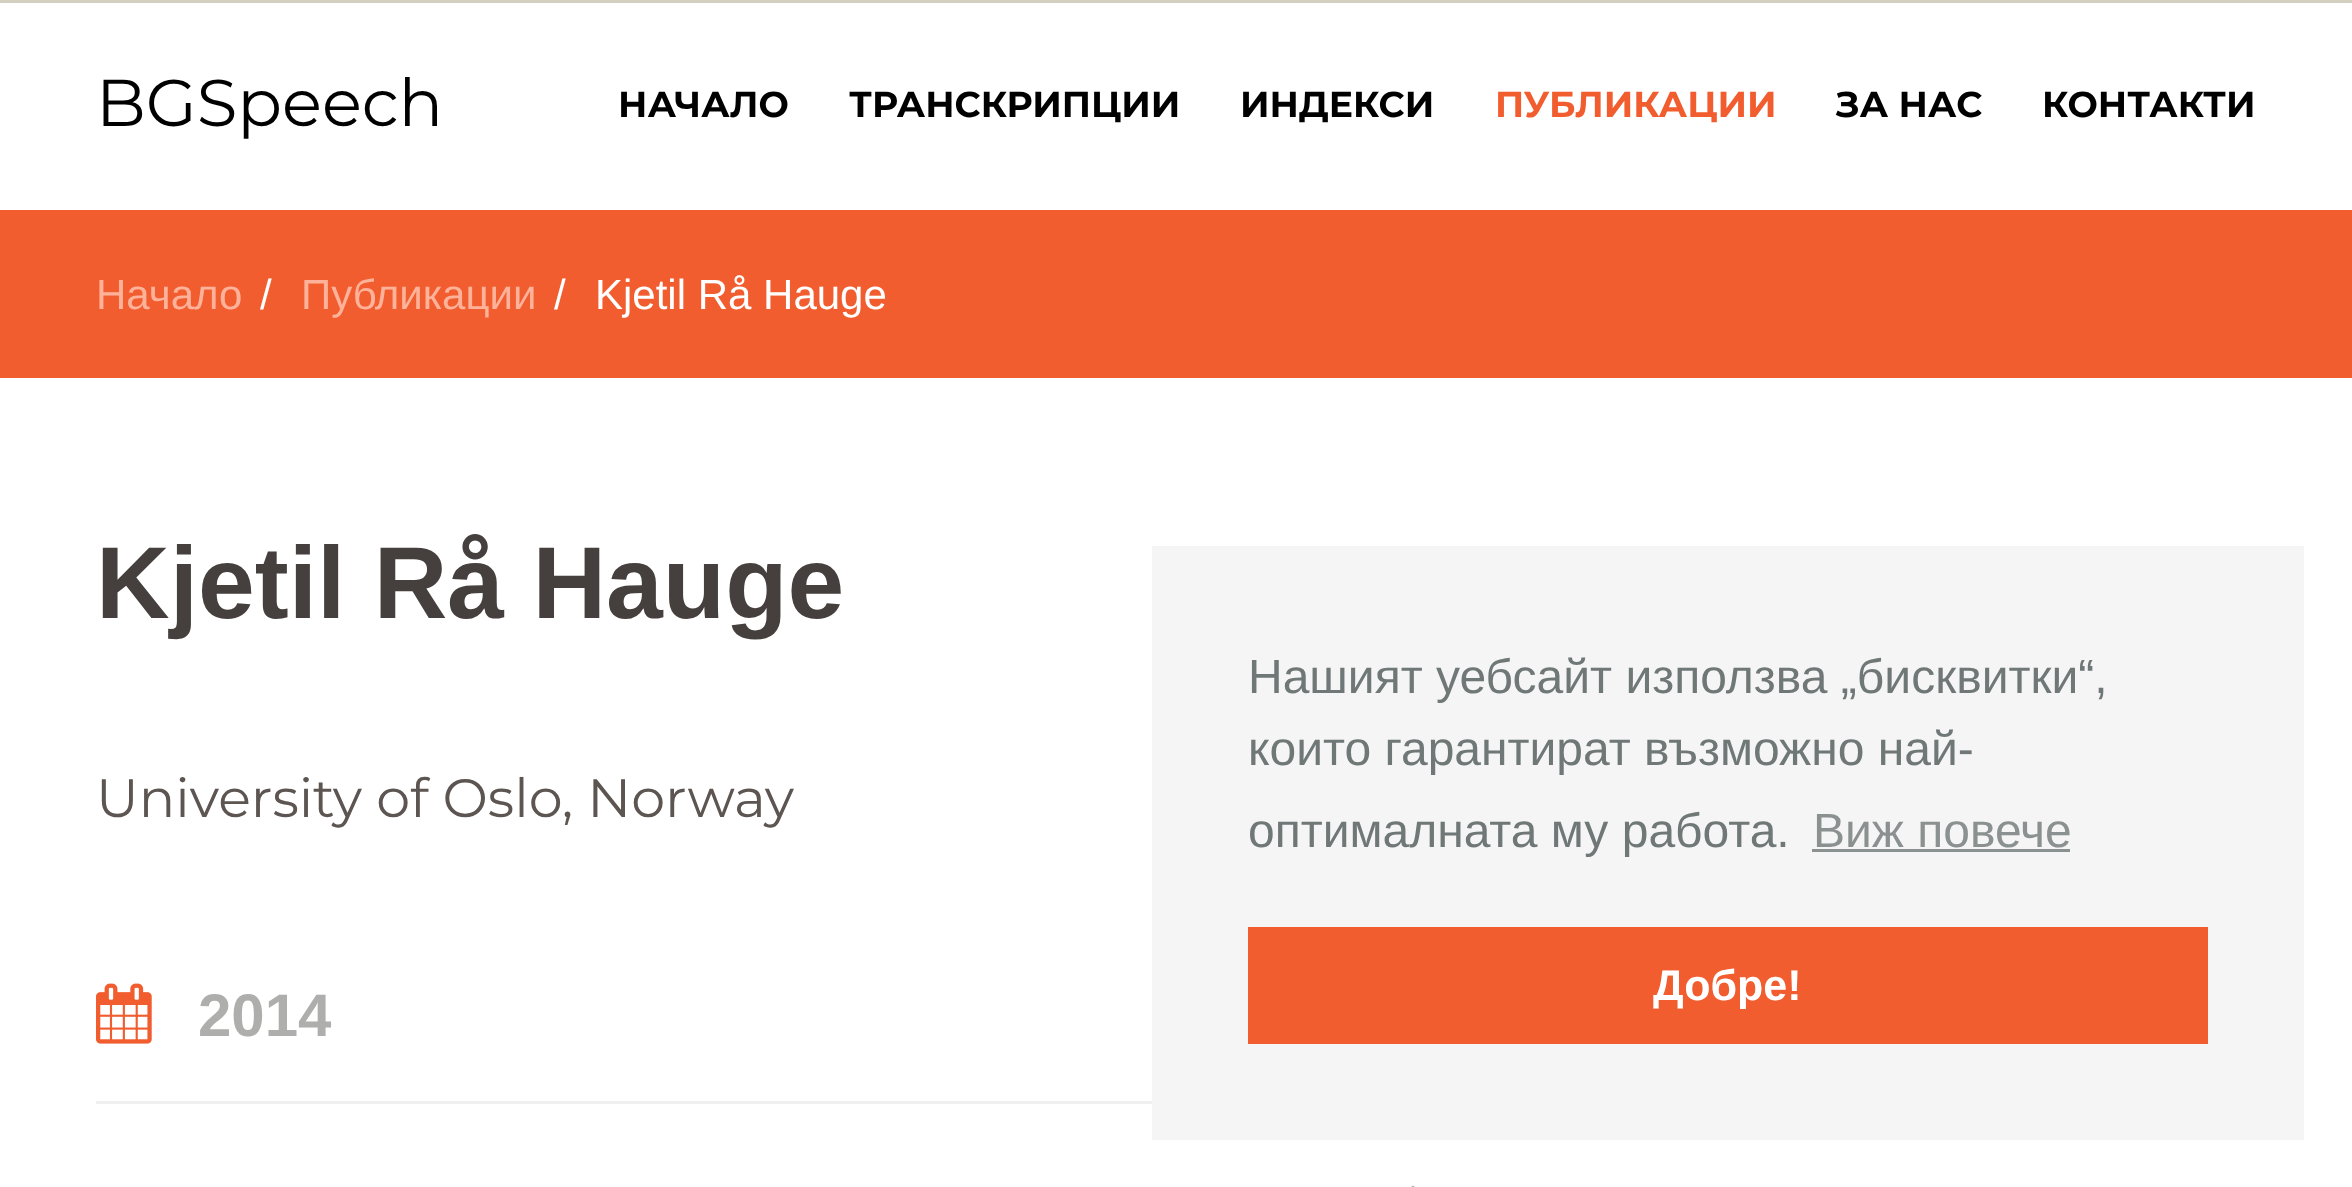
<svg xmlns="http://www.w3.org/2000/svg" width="2352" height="1187">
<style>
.a{font:66px Montserrat;fill:#000}
.b{font:bold 36px Montserrat;fill:#000}
.c{font:bold 36px Montserrat;fill:#f15d2f}
.d{font:42px Liberation Sans;fill:#ffb29a}
.e{font:42px Liberation Sans;fill:#fff}
.f{font:bold 102px Liberation Sans;fill:#45403d}
.g{font:54px Montserrat;fill:#5c5551}
.h{font:bold 60px Liberation Sans;fill:#aeaead}
.i{font:48px Liberation Sans;fill:#707877}
.j{font:48px Liberation Sans;fill:#8b9190}
.k{font:bold 43px Liberation Sans;fill:#fff}
</style>
<rect width="100%" height="100%" fill="#fff"/>
<path fill="#d3d0c2" d="M0 0h2352v3H0z"/>
<path fill="#f15d2f" d="M0 210h2352v168H0z"/>
<path fill="#f0f0f0" d="M96 1101h1056v3H96z"/>
<image href="1.png" x="96" y="983" width="56" height="61"/>
<image href="2.png" x="1411" y="1185" width="4" height="2"/>
<path fill="#f5f5f5" d="M1152 546h1152v594H1152z"/>
<path fill="#8b9190" d="M1812 849h258v3H1812z"/>
<path fill="#f15d2f" d="M1248 927h960v117H1248z"/>
<text class="a" x="96" y="126">BGSpeech</text>
<text class="b" x="618" y="117">НАЧАЛО</text>
<text class="b" x="849" y="117">ТРАНСКРИПЦИИ</text>
<text class="b" x="1240" y="117">ИНДЕКСИ</text>
<text class="c" x="1495" y="117">ПУБЛИКАЦИИ</text>
<text class="b" x="1836" y="117">ЗА НАС</text>
<text class="b" x="2042" y="117">КОНТАКТИ</text>
<text class="d" x="96" y="309">Начало</text>
<text class="e" x="260" y="309">/</text>
<text class="d" x="301" y="309">Публикации</text>
<text class="e" x="554" y="309">/</text>
<text class="e" x="595" y="309">Kjetil Rå Hauge</text>
<text class="f" x="96" y="618">Kjetil Rå Hauge</text>
<text class="g" x="96" y="817">University of Oslo, Norway</text>
<text class="h" x="198" y="1036">2014</text>
<text class="i" x="1248" y="693">Нашият уебсайт използва „бисквитки“,</text>
<text class="i" x="1248" y="765">които гарантират възможно най-</text>
<text class="i" x="1248" y="847">оптималната му работа.</text>
<text class="j" x="1813" y="847">Виж повече</text>
<text class="k" x="1653" y="1000">Добре!</text>
</svg>
